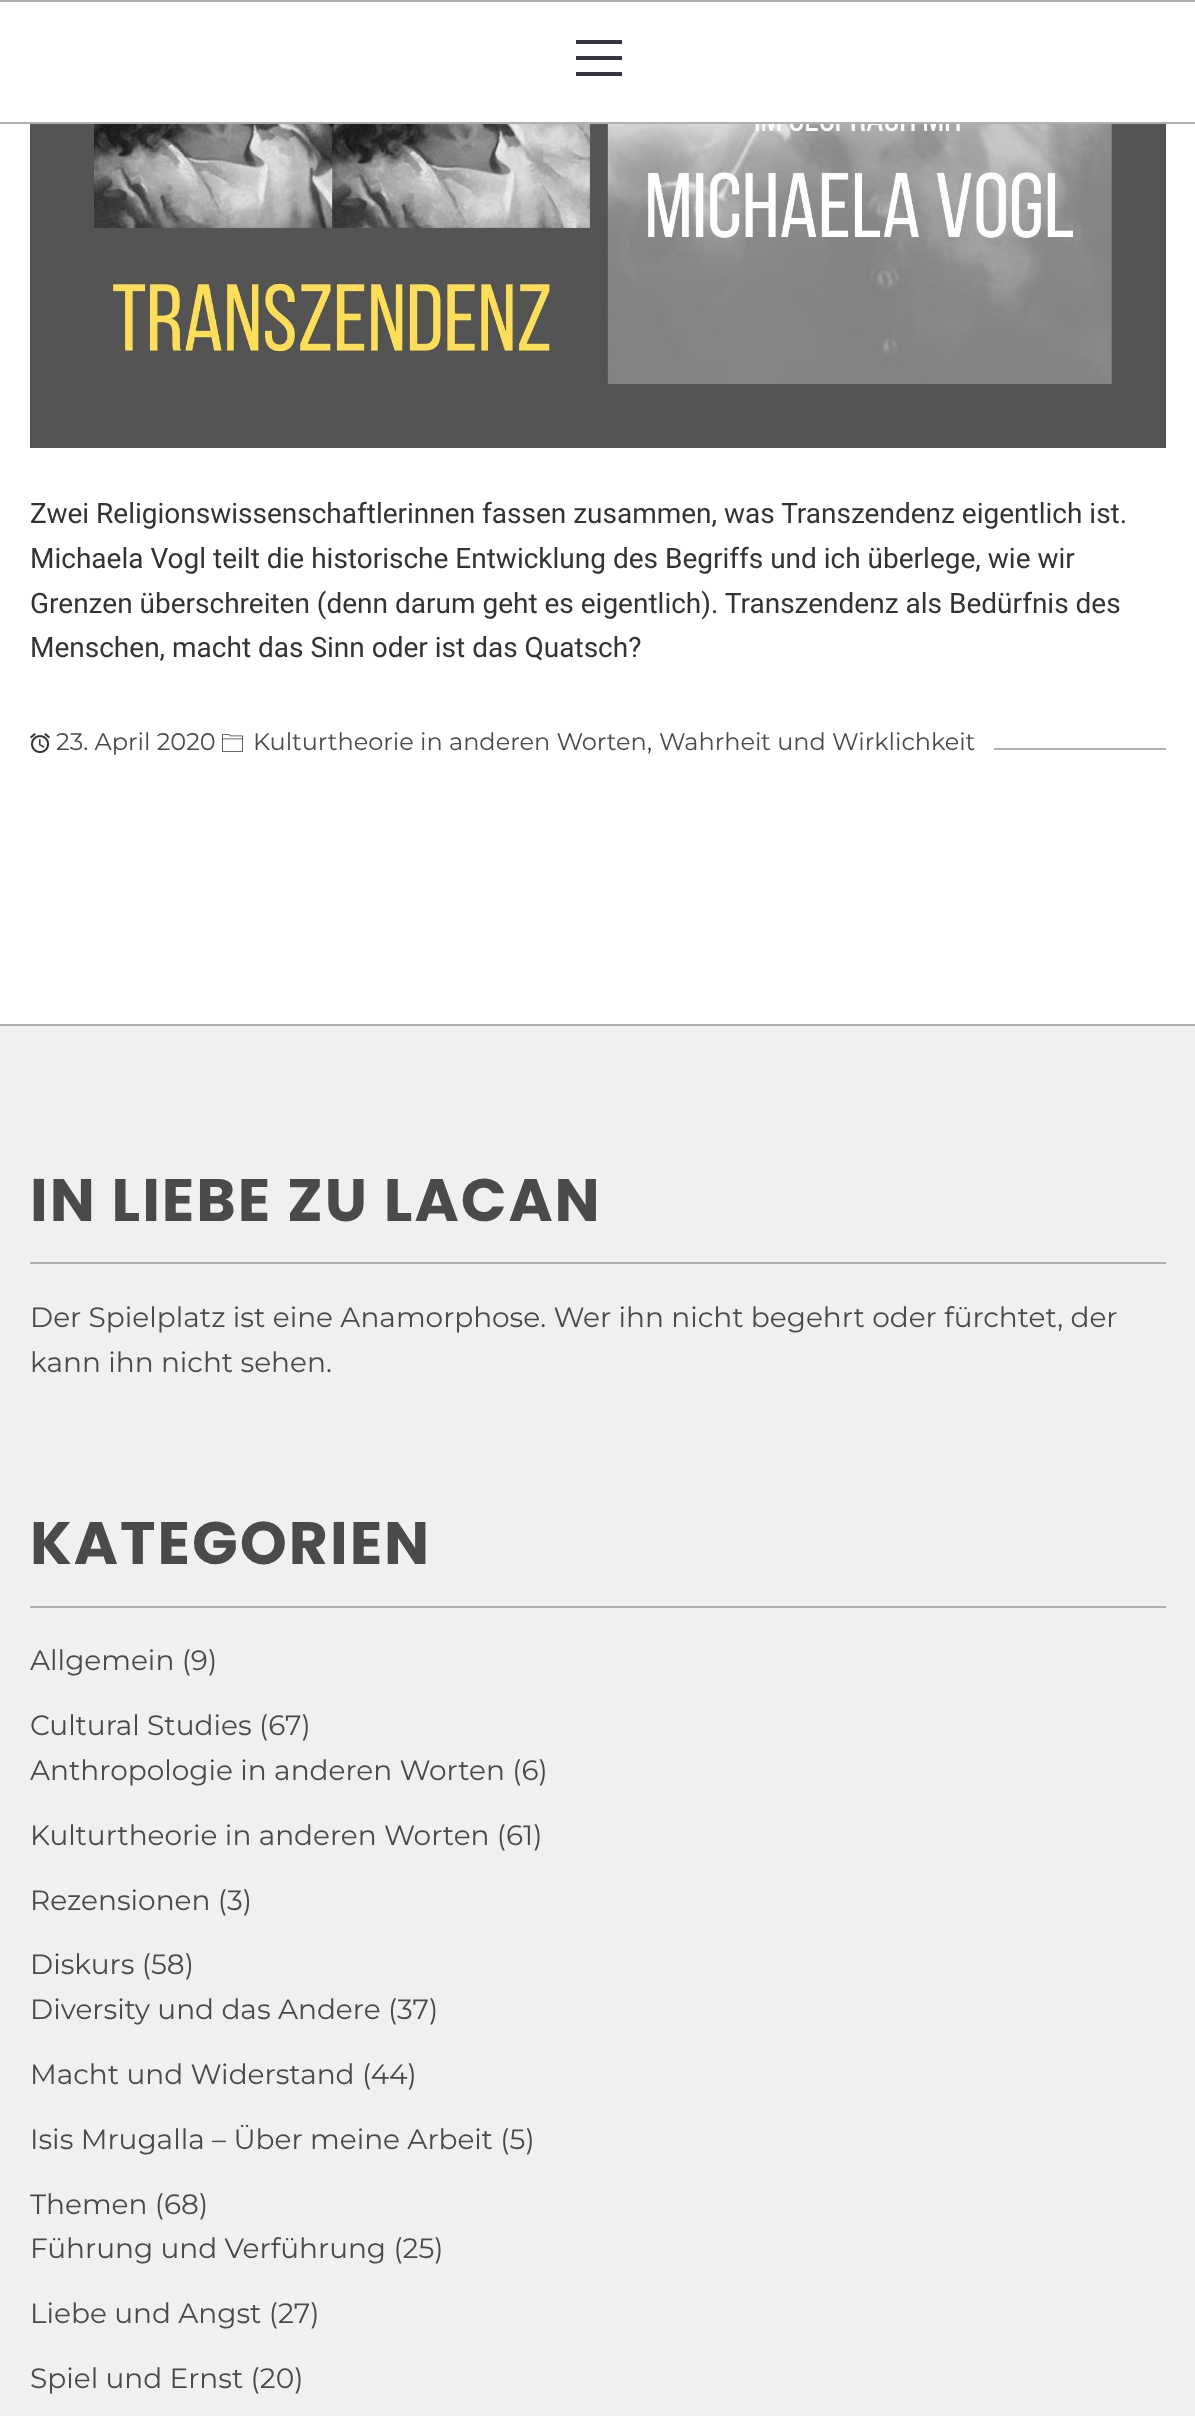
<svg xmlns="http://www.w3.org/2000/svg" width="1195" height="2416">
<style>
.a{font:28px Roboto;fill:#333}
.b{font:100 24px Montserrat;fill:#4a4a4a}
.c{font:100 24px Montserrat;fill:#333}
.d{font:bold 60px Poppins;letter-spacing:2px;fill:#4a4a4a}
.e{font:100 28px Montserrat;fill:#4a4a4a}
</style>
<rect width="100%" height="100%" fill="#fff"/>
<path fill="#afafaf" d="M0 0h1195v2H0z"/>
<path fill="#afafaf" d="M0 122h1195v2H0z"/>
<path fill="#33363b" d="M576 56h46v4H576z"/>
<path fill="#33363b" d="M576 40h46v4H576z"/>
<path fill="#33363b" d="M576 72h46v4H576z"/>
<image href="1.png" x="30" y="124" width="1136" height="324"/>
<image href="2.png" x="30" y="733" width="20" height="20"/>
<image href="3.png" x="222" y="734" width="21" height="18"/>
<path fill="#afafaf" d="M994 748h172v2H994z"/>
<path fill="#f0f0f0" d="M0 1026h1195v1390H0z"/>
<path fill="#afafaf" d="M0 1024h1195v2H0z"/>
<path fill="#afafaf" d="M30 1262h1136v2H30z"/>
<path fill="#afafaf" d="M30 1606h1136v2H30z"/>
<text class="a" x="30" y="523">Zwei Religionswissenschaftlerinnen fassen zusammen, was Transzendenz eigentlich ist.</text>
<text class="a" x="30" y="568">Michaela Vogl teilt die historische Entwicklung des Begriffs und ich überlege, wie wir</text>
<text class="a" x="30" y="613">Grenzen überschreiten (denn darum geht es eigentlich). Transzendenz als Bedürfnis des</text>
<text class="a" x="30" y="657">Menschen, macht das Sinn oder ist das Quatsch?</text>
<text class="b" x="56" y="750">23. April 2020</text>
<text class="b" x="253" y="750">Kulturtheorie in anderen Worten</text>
<text class="c" x="647" y="750">,</text>
<text class="b" x="659" y="750">Wahrheit und Wirklichkeit</text>
<text class="d" x="30" y="1221">IN LIEBE ZU LACAN</text>
<text class="e" x="30" y="1327">Der Spielplatz ist eine Anamorphose. Wer ihn nicht begehrt oder fürchtet, der</text>
<text class="e" x="30" y="1372">kann ihn nicht sehen.</text>
<text class="d" x="30" y="1564">KATEGORIEN</text>
<text class="e" x="30" y="1670">Allgemein (9)</text>
<text class="e" x="30" y="1735">Cultural Studies (67)</text>
<text class="e" x="30" y="1780">Anthropologie in anderen Worten (6)</text>
<text class="e" x="30" y="1845">Kulturtheorie in anderen Worten (61)</text>
<text class="e" x="30" y="1910">Rezensionen (3)</text>
<text class="e" x="30" y="1974">Diskurs (58)</text>
<text class="e" x="30" y="2019">Diversity und das Andere (37)</text>
<text class="e" x="30" y="2084">Macht und Widerstand (44)</text>
<text class="e" x="30" y="2149">Isis Mrugalla – Über meine Arbeit (5)</text>
<text class="e" x="30" y="2214">Themen (68)</text>
<text class="e" x="30" y="2258">Führung und Verführung (25)</text>
<text class="e" x="30" y="2323">Liebe und Angst (27)</text>
<text class="e" x="30" y="2388">Spiel und Ernst (20)</text>
</svg>
